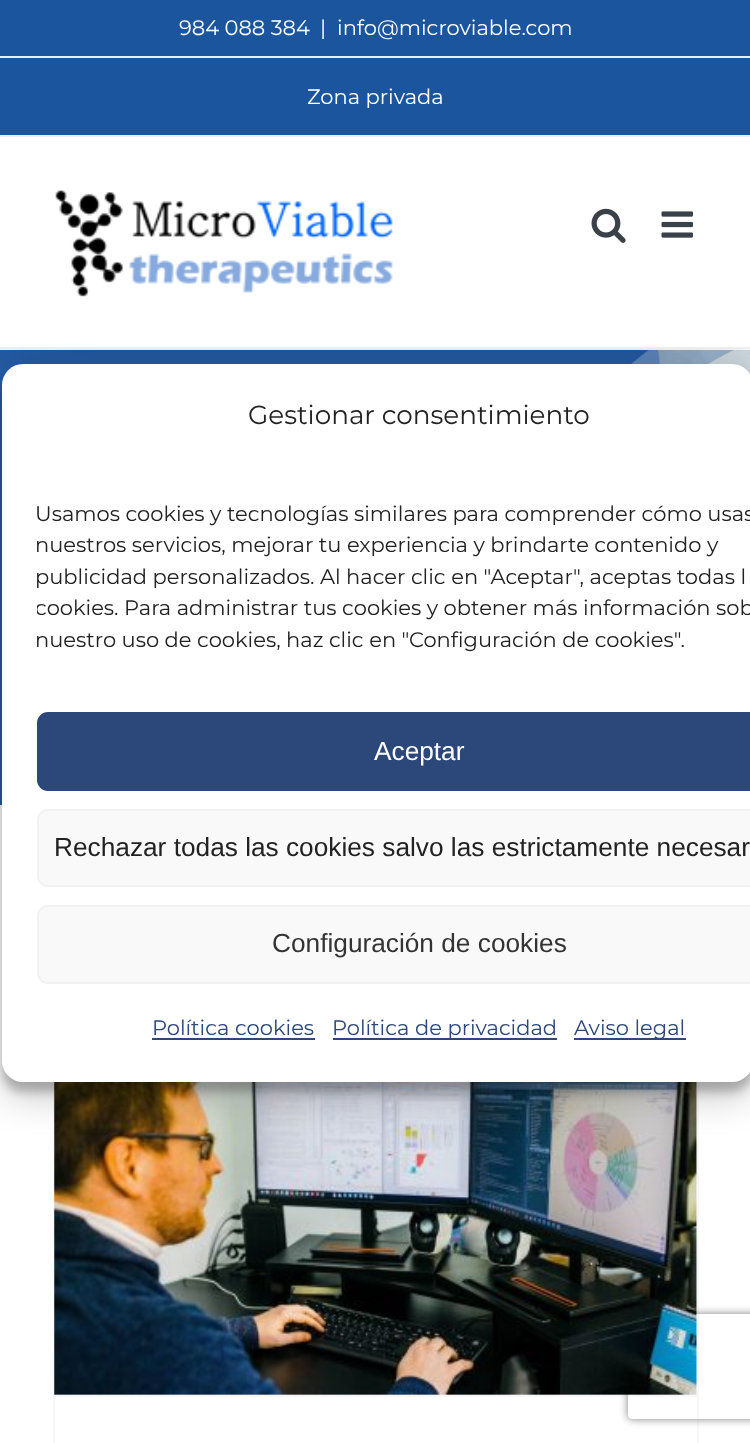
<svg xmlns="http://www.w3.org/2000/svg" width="750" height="1443">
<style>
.a{font:21px Montserrat;fill:#fff}
.b{font:26.25px Montserrat;fill:#222}
.c{font:21px Montserrat;fill:#222}
.d{font:26.25px Liberation Sans;fill:#fff}
.e{font:26.25px Liberation Sans;fill:#222}
.f{font:26.25px Liberation Sans;fill:#333}
.g{font:21px Montserrat;fill:#2c487a}
</style>
<defs>
<clipPath id="clip1"><path d="M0 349h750v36H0z"/></clipPath>
<clipPath id="clip2"><path d="M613 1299h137v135h-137zm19 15h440c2 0 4 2 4 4v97c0 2-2 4-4 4h-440c-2 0-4-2-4-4v-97c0-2 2-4 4-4z" clip-rule="evenodd"/></clipPath>
<clipPath id="clip3"><path d="M37 478h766v199H37z"/></clipPath>
</defs>
<rect width="100%" height="100%" fill="#fff"/>
<image href="4.png" x="0" y="350" width="750" height="455"/>
<g clip-path="url(#clip1)">
<path fill="#00000024" filter="blur(44px)" d="M4 21h743v341H4z"/>
</g>
<path fill="#1a559e" d="M0 0h750v135H0z"/>
<path fill="#eee" d="M0 135h750v2H0z"/>
<path fill="#eee" d="M0 56h750v2H0z"/>
<path fill="#eee" d="M0 347h750v2H0z"/>
<image href="1.png" x="55" y="190" width="338" height="107"/>
<image href="2.png" x="591" y="208" width="35" height="35"/>
<image href="3.png" x="661" y="211" width="32" height="27"/>
<path fill="#f7f7f7" d="M697 1082h2v361H697z"/>
<path fill="#f7f7f7" d="M53 1082h2v361H53z"/>
<path fill="#f7f7f7" d="M54 1395h643v2H54z"/>
<g clip-path="url(#clip2)">
<rect fill="#808080" filter="blur(4.5px)" x="628" y="1314" width="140" height="105" rx="4"/>
</g>
<image href="5.png" x="54" y="1082" width="643" height="313"/>
<rect fill="#0000003b" filter="blur(5px)" x="2" y="375" width="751" height="717" rx="21"/>
<rect fill="#00000030" filter="blur(17.5px)" x="2" y="382" width="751" height="717" rx="21"/>
<rect fill="#fff" x="2" y="364" width="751" height="718" rx="21"/>
<rect fill="#2c487a" stroke="#2c487a" stroke-width="2" x="38" y="713" width="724" height="77" rx="10"/>
<rect fill="#f9f9f9" stroke="#f2f2f2" stroke-width="2" x="38" y="810" width="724" height="76" rx="10"/>
<rect fill="#f9f9f9" stroke="#f2f2f2" stroke-width="2" x="38" y="906" width="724" height="77" rx="10"/>
<path fill="#2c487a" d="M152 1038h163v2H152z"/>
<path fill="#2c487a" d="M333 1038h224v2H333z"/>
<path fill="#2c487a" d="M574 1038h112v2H574z"/>
<text class="a" x="179" y="35">984 088 384</text>
<text class="a" x="320" y="35">|</text>
<text class="a" x="337" y="35">info@microviable.com</text>
<text class="a" x="307" y="104">Zona privada</text>
<text class="b" x="248" y="424">Gestionar consentimiento</text>
<text class="c" x="35" y="521">Usamos cookies y tecnologías similares para comprender cómo usas</text>
<text class="c" x="35" y="552">nuestros servicios, mejorar tu experiencia y brindarte contenido y</text>
<text class="c" x="35" y="584">publicidad personalizados. Al hacer clic en "Aceptar", aceptas todas l</text>
<g clip-path="url(#clip3)">
<text class="c" x="35" y="615">cookies. Para administrar tus cookies y obtener más información sob</text>
</g>
<text class="c" x="35" y="647">nuestro uso de cookies, haz clic en "Configuración de cookies".</text>
<text class="d" x="374" y="760">Aceptar</text>
<text class="e" x="54" y="856">Rechazar todas las cookies salvo las estrictamente necesar</text>
<text class="f" x="272" y="952">Configuración de cookies</text>
<text class="g" x="152" y="1035">Política cookies</text>
<text class="g" x="332" y="1035">Política de privacidad</text>
<text class="g" x="574" y="1035">Aviso legal</text>
</svg>
